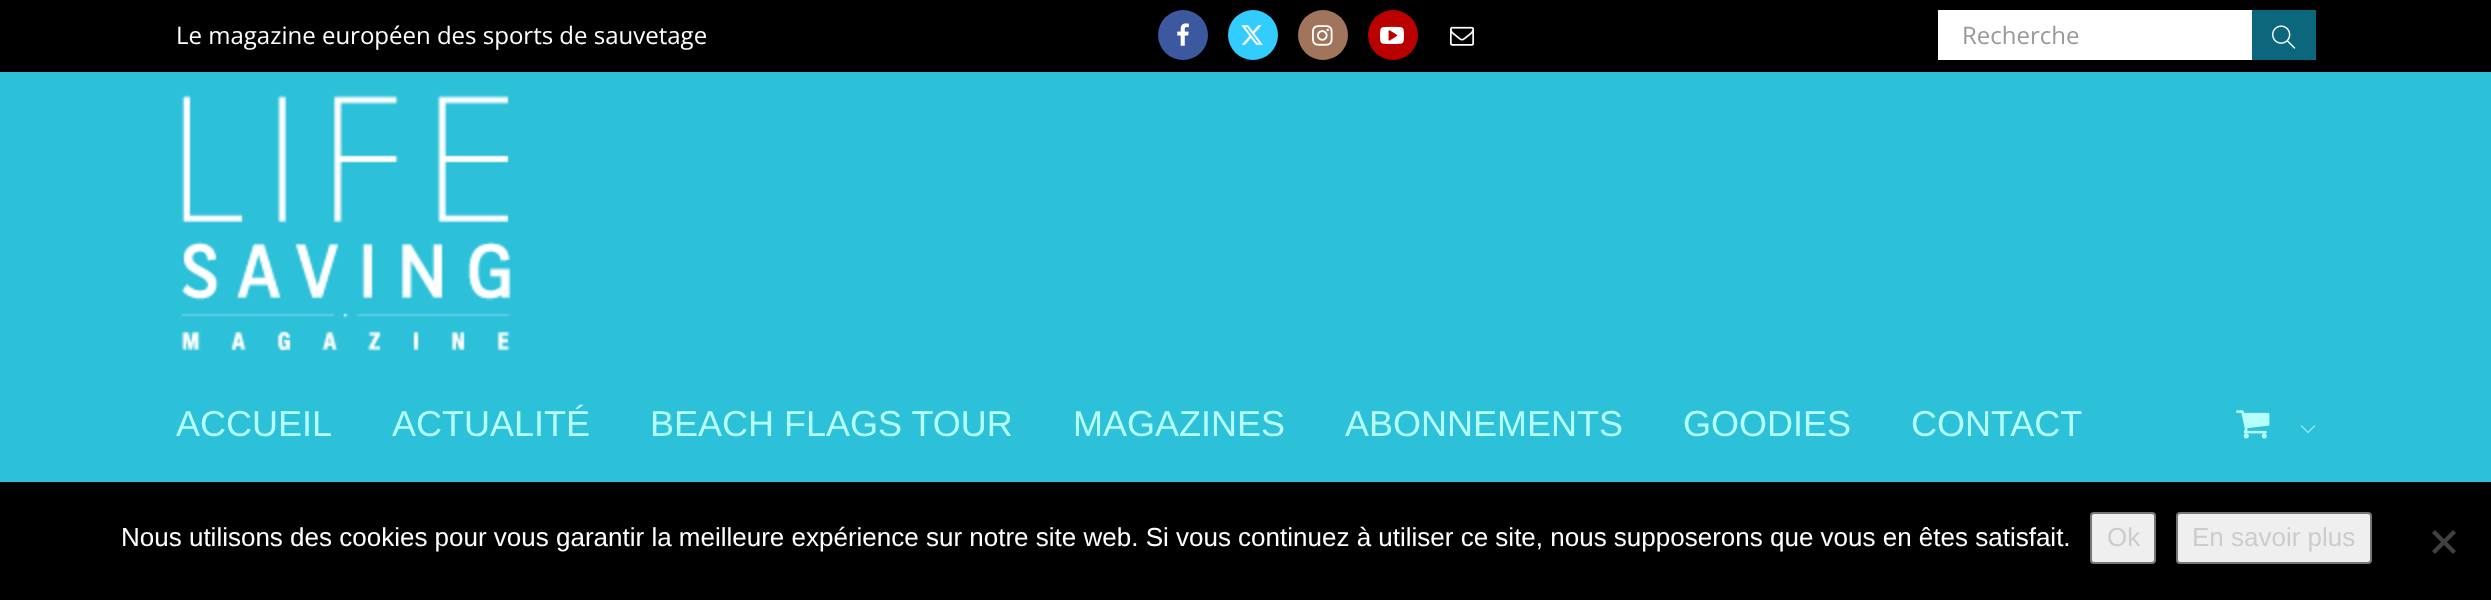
<svg xmlns="http://www.w3.org/2000/svg" width="2491" height="600">
<style>
.a{font:24px Open Sans;fill:#fff}
.b{font:24px Open Sans;fill:#999}
.c{font:36px Arimo;fill:#b5ffff}
.d{font:26px Liberation Sans;fill:#fff}
.e{font:26px Liberation Sans;fill:#ccc}
</style>
<rect width="100%" height="100%" fill="#2cc0d9"/>
<path fill="#000" d="M0 0h2491v72H0z"/>
<circle fill="#3c599f" cx="1183" cy="35" r="25"/>
<image href="1.png" x="1177" y="23" width="12" height="23"/>
<circle fill="#32ccfe" cx="1253" cy="35" r="25"/>
<image href="2.png" x="1241" y="25" width="22" height="20"/>
<circle fill="#a1755c" cx="1323" cy="35" r="25"/>
<image href="3.png" x="1312" y="25" width="21" height="21"/>
<circle fill="#b00" cx="1393" cy="35" r="25"/>
<image href="4.png" x="1380" y="26" width="24" height="18"/>
<image href="5.png" x="1450" y="26" width="24" height="20"/>
<path fill="#fff" d="M1938 10h314v50H1938z"/>
<path fill="#0b687c" d="M2252 10h64v50H2252z"/>
<image href="6.png" x="2272" y="25" width="24" height="24"/>
<image href="7.png" x="180" y="95" width="331" height="256"/>
<image href="8.png" x="2236" y="410" width="34" height="29"/>
<image href="9.png" x="2300" y="425" width="16" height="8"/>
<path fill="#000" d="M0 482h2491v118H0z"/>
<rect fill="#efefef" stroke="#767676" stroke-width="2" x="2091" y="513" width="64" height="50" rx="3"/>
<rect fill="#efefef" stroke="#767676" stroke-width="2" x="2177" y="513" width="194" height="50" rx="3"/>
<path fill="#404040" d="M2453 530l3 3l-21 21l-3-3z"/>
<path fill="#404040" d="M2432 533l3-3l21 21l-3 3z"/>
<text class="a" x="176" y="44">Le magazine européen des sports de sauvetage</text>
<text class="b" x="1962" y="44">Recherche</text>
<text class="c" x="176" y="436">ACCUEIL</text>
<text class="c" x="392" y="436">ACTUALITÉ</text>
<text class="c" x="650" y="436">BEACH FLAGS TOUR</text>
<text class="c" x="1073" y="436">MAGAZINES</text>
<text class="c" x="1345" y="436">ABONNEMENTS</text>
<text class="c" x="1683" y="436">GOODIES</text>
<text class="c" x="1911" y="436">CONTACT</text>
<text class="d" x="121" y="546">Nous utilisons des cookies pour vous garantir la meilleure expérience sur notre site web. Si vous continuez à utiliser ce site, nous supposerons que vous en êtes satisfait.</text>
<text class="e" x="2107" y="546">Ok</text>
<text class="e" x="2192" y="546">En savoir plus</text>
</svg>
